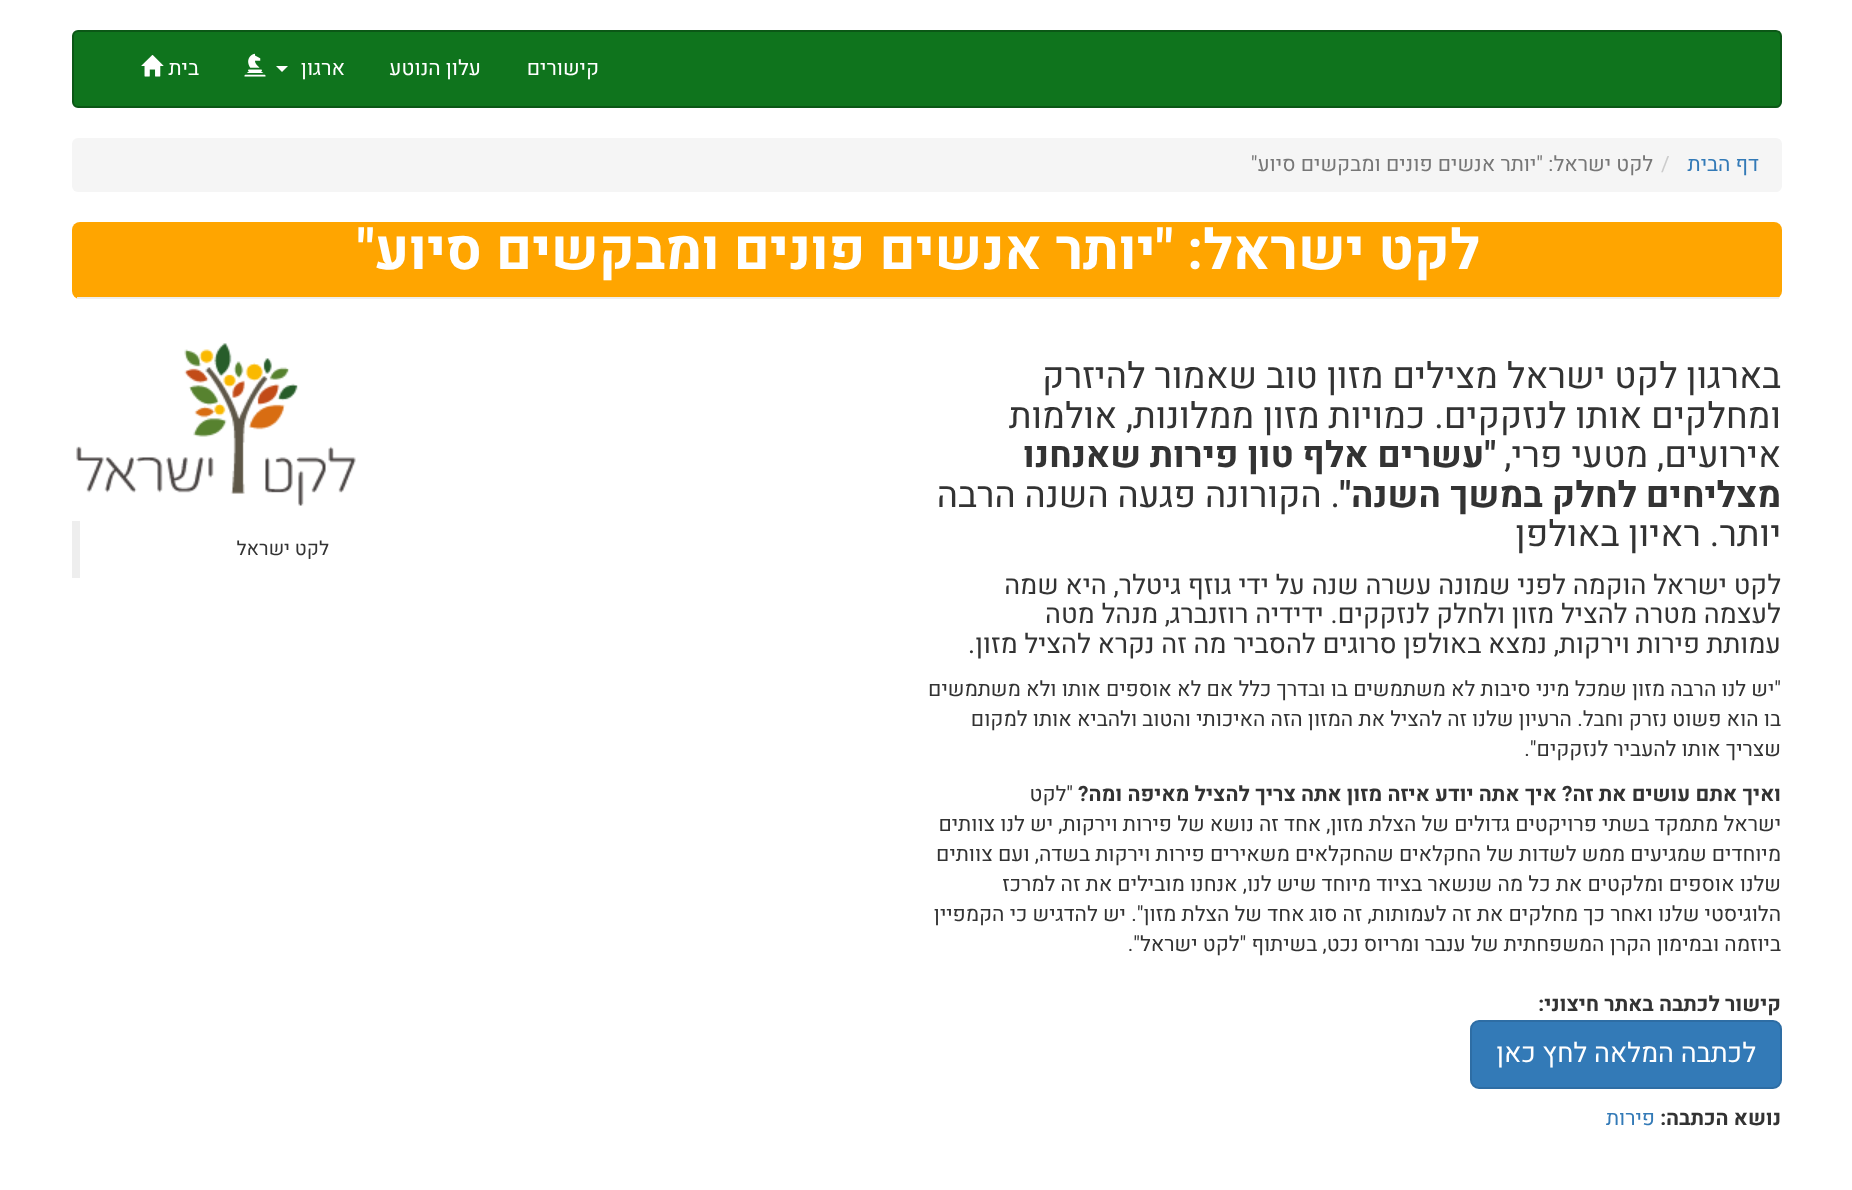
<svg xmlns="http://www.w3.org/2000/svg" width="1852" height="1190">
<style>
.a{font:21px Heebo;direction:rtl;fill:#fff}
.b{font:21px Heebo;direction:rtl;fill:#337ab7}
.c{font:21px Heebo;fill:#ccc}
.d{font:21px Heebo;direction:rtl;fill:#777}
.e{font:bold 55.6px Heebo;direction:rtl;fill:#fff}
.f{font:36px Heebo;direction:rtl;fill:#333}
.g{font:bold 36px Heebo;direction:rtl;fill:#333}
.h{font:27px Heebo;direction:rtl;fill:#333}
.i{font:21px Heebo;direction:rtl;fill:#333}
.j{font:bold 21px Heebo;direction:rtl;fill:#333}
.k{font:19.5px Heebo;direction:rtl;fill:#333}
.l{font:27px Heebo;direction:rtl;fill:#fff}
</style>
<rect width="100%" height="100%" fill="#fff"/>
<rect fill="#0f741d" stroke="#0b5716" stroke-width="2" x="73" y="31" width="1708" height="76" rx="5"/>
<path fill="#fff" d="M276 66h12l-6 6z"/>
<image href="1.png" x="244" y="53" width="22" height="24"/>
<image href="2.png" x="141" y="55" width="23" height="22"/>
<rect fill="#f5f5f5" x="72" y="138" width="1710" height="54" rx="6"/>
<rect fill="#ffa500" x="72" y="222" width="1710" height="77" rx="8"/>
<path fill="#eee" d="M77 297h1702v2H77z"/>
<image href="3.png" x="76" y="343" width="280" height="163"/>
<path fill="#eee" d="M72 521h8v57H72z"/>
<rect fill="#337ab7" stroke="#2e6da4" stroke-width="2" x="1471" y="1021" width="310" height="67" rx="8"/>
<text class="a" x="599" y="75">קישורים</text>
<text class="a" x="481" y="75">עלון הנוטע</text>
<text class="a" x="345" y="75">ארגון</text>
<text class="a" x="199" y="75">בית</text>
<text class="b" x="1759" y="171">דף הבית</text>
<text class="c" x="1661" y="171">/</text>
<text class="d" x="1653" y="171">לקט ישראל: "יותר אנשים פונים ומבקשים סיוע"</text>
<text class="e" x="1480" y="269">לקט ישראל: "יותר אנשים פונים ומבקשים סיוע"</text>
<text class="f" x="1781" y="388">בארגון לקט ישראל מצילים מזון טוב שאמור להיזרק</text>
<text class="f" x="1781" y="428">ומחלקים אותו לנזקקים. כמויות מזון ממלונות, אולמות</text>
<text class="f" x="1781" y="467">אירועים, מטעי פרי,</text>
<text class="g" x="1496" y="467">"עשרים אלף טון פירות שאנחנו</text>
<text class="g" x="1781" y="507">מצליחים לחלק במשך השנה"</text>
<text class="f" x="1340" y="507">. הקורונה פגעה השנה הרבה</text>
<text class="f" x="1781" y="546">יותר. ראיון באולפן</text>
<text class="h" x="1781" y="594">לקט ישראל הוקמה לפני שמונה עשרה שנה על ידי גוזף גיטלר, היא שמה</text>
<text class="h" x="1781" y="623">לעצמה מטרה להציל מזון ולחלק לנזקקים. ידידיה רוזנברג, מנהל מטה</text>
<text class="h" x="1781" y="653">עמותת פירות וירקות, נמצא באולפן סרוגים להסביר מה זה נקרא להציל מזון.</text>
<text class="i" x="1781" y="696">"יש לנו הרבה מזון שמכל מיני סיבות לא משתמשים בו ובדרך כלל אם לא אוספים אותו ולא משתמשים</text>
<text class="i" x="1781" y="726">בו הוא פשוט נזרק וחבל. הרעיון שלנו זה להציל את המזון הזה האיכותי והטוב ולהביא אותו למקום</text>
<text class="i" x="1781" y="756">שצריך אותו להעביר לנזקקים".</text>
<text class="j" x="1781" y="801">ואיך אתם עושים את זה? איך אתה יודע איזה מזון אתה צריך להציל מאיפה ומה?</text>
<text class="i" x="1073" y="801">"לקט</text>
<text class="i" x="1781" y="831">ישראל מתמקד בשתי פרויקטים גדולים של הצלת מזון, אחד זה נושא של פירות וירקות, יש לנו צוותים</text>
<text class="i" x="1781" y="861">מיוחדים שמגיעים ממש לשדות של החקלאים שהחקלאים משאירים פירות וירקות בשדה, ועם צוותים</text>
<text class="i" x="1781" y="891">שלנו אוספים ומלקטים את כל מה שנשאר בציוד מיוחד שיש לנו, אנחנו מובילים את זה למרכז</text>
<text class="i" x="1781" y="921">הלוגיסטי שלנו ואחר כך מחלקים את זה לעמותות, זה סוג אחד של הצלת מזון". יש להדגיש כי הקמפיין</text>
<text class="i" x="1781" y="951">ביוזמה ובמימון הקרן המשפחתית של ענבר ומריוס נכט, בשיתוף "לקט ישראל".</text>
<text class="k" x="329" y="555">לקט ישראל</text>
<text class="j" x="1781" y="1011">קישור לכתבה באתר חיצוני:</text>
<text class="l" x="1756" y="1062">לכתבה המלאה לחץ כאן</text>
<text class="j" x="1781" y="1125">נושא הכתבה:</text>
<text class="b" x="1655" y="1125">פירות</text>
</svg>
